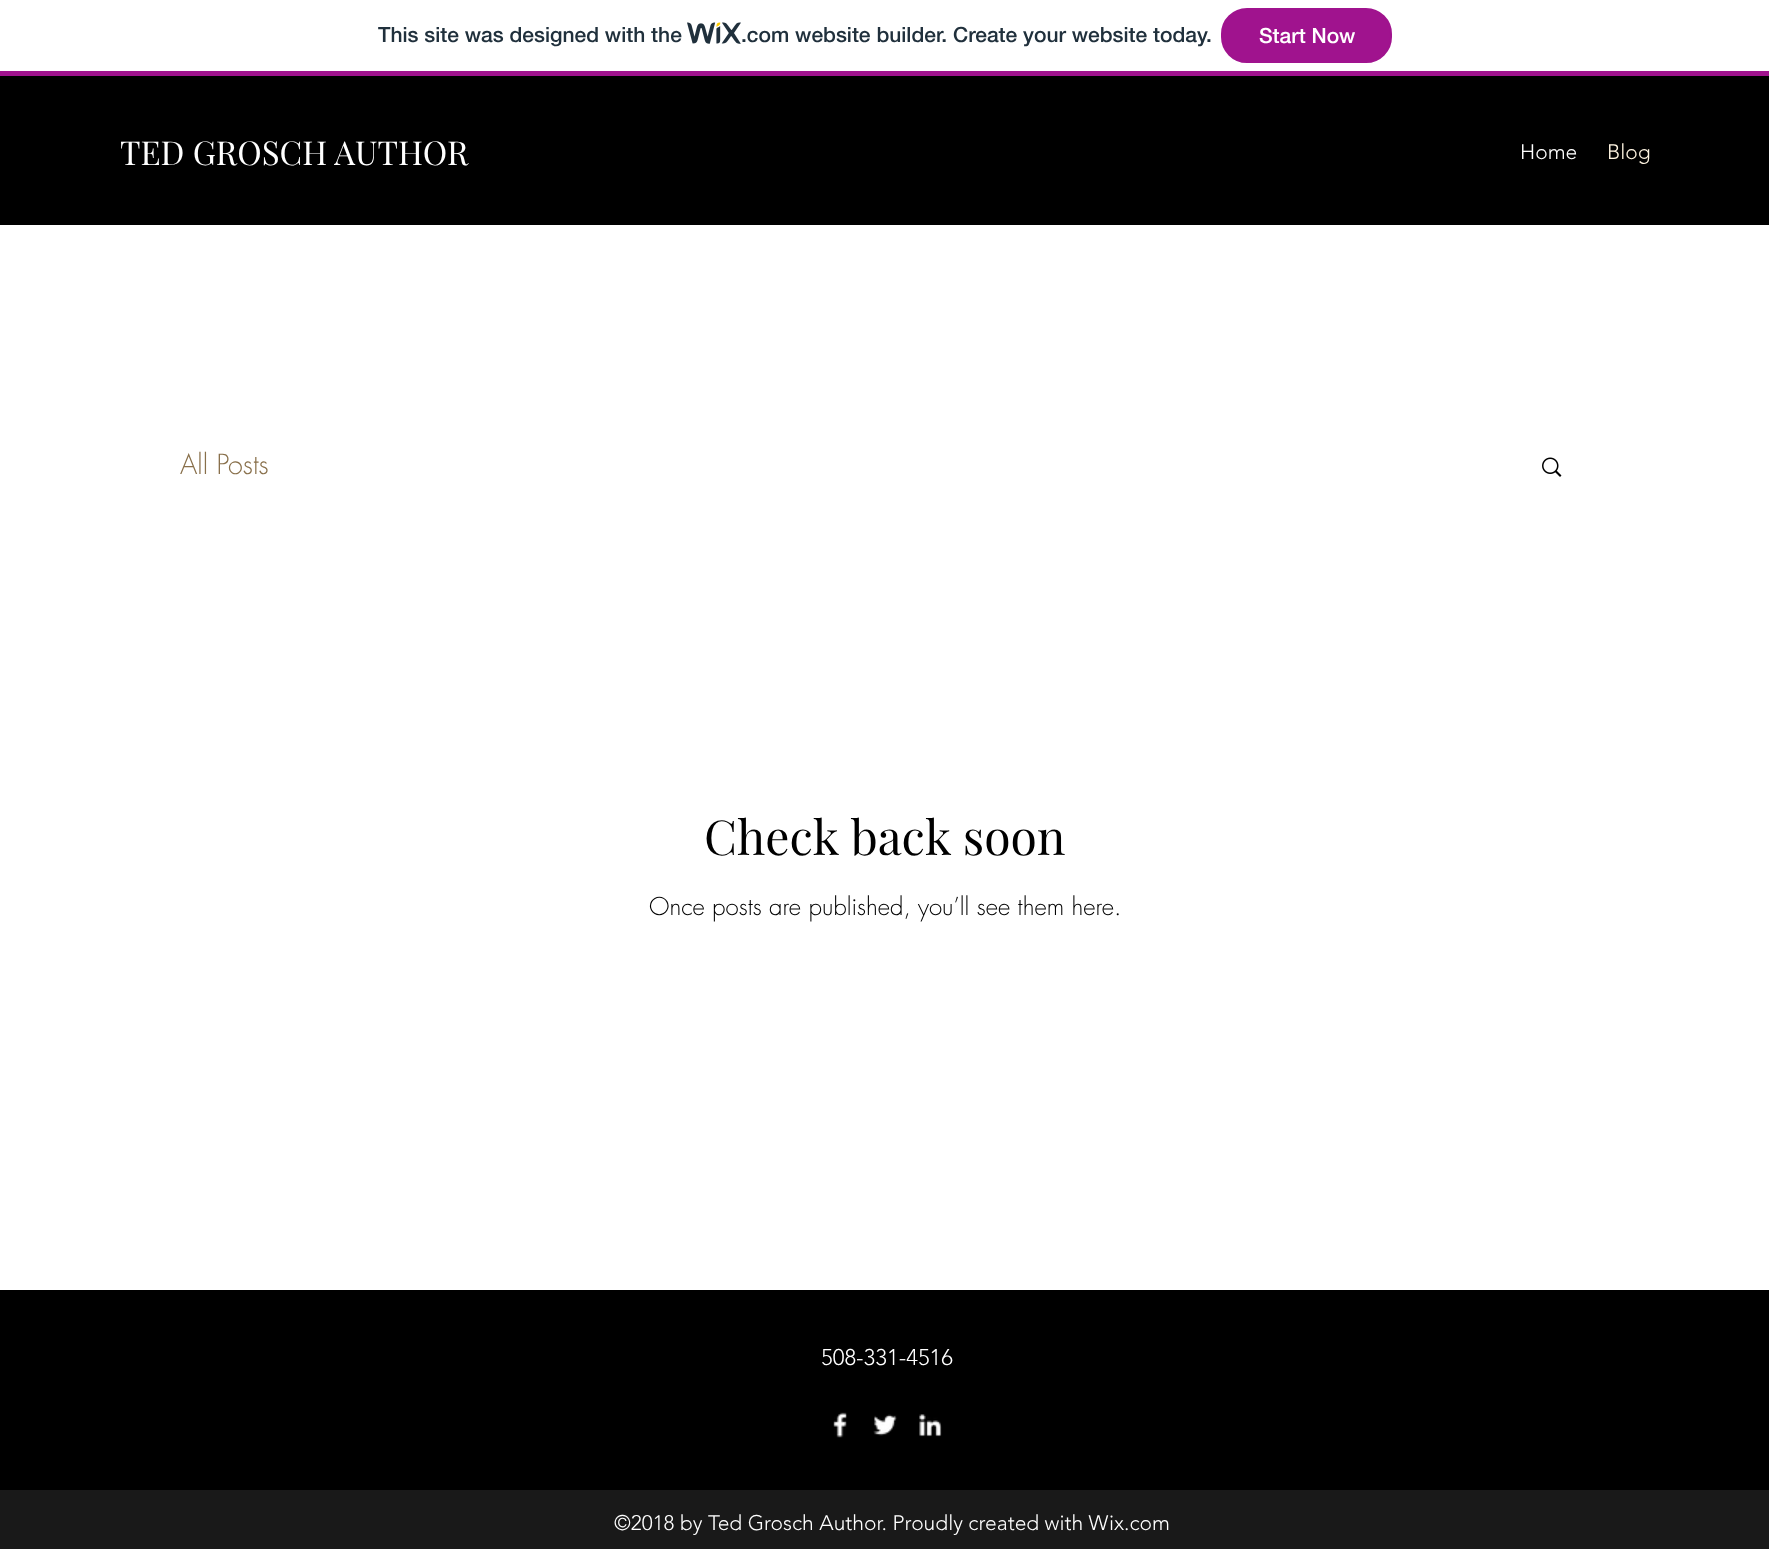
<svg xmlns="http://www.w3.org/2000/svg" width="1769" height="1549">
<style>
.a{font:500 21px 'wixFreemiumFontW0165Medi';fill:#20303c}
.b{font:500 21px 'wixFreemiumFontW0165Medi';fill:#fff}
.c{font:33px Playfair Display;fill:#fff}
.d{font:300 21px 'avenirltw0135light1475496';fill:#fff}
.e{font:300 21px 'avenirltw0135light1475496';fill:#fff5e2}
.f{font:300 27px futura;fill:#886f4a}
.g{font:48px Playfair Display;fill:#000}
.h{font:300 24px futura;fill:#000}
.i{font:300 22.5px 'avenirltw0135light1475496';fill:#fff}
</style>
<rect width="100%" height="100%" fill="#fff"/>
<path fill="#a0138e" d="M0 71h1769v5H0z"/>
<image href="1.png" x="687" y="22" width="54" height="22"/>
<rect fill="#a0138e" stroke="#a0138e" stroke-width="2" x="1222" y="9" width="169" height="53" rx="25"/>
<path fill="#000" d="M0 76h1769v149H0z"/>
<image href="2.png" x="1542" y="457" width="20" height="20"/>
<path fill="#000" d="M0 1290h1769v200H0z"/>
<image href="3.png" x="833" y="1412" width="14" height="26"/>
<image href="4.png" x="873" y="1414" width="24" height="22"/>
<image href="5.png" x="919" y="1414" width="23" height="23"/>
<path fill="#191919" d="M0 1490h1769v59H0z"/>
<text class="a" x="378" y="42">This site was designed with the</text>
<text class="a" x="741" y="42">.com website builder. Create your website today.</text>
<text class="b" x="1259" y="43">Start Now</text>
<text class="c" x="120" y="165">TED GROSCH AUTHOR</text>
<text class="d" x="1520" y="159">Home</text>
<text class="e" x="1607" y="159">Blog</text>
<text class="f" x="180" y="474">All Posts</text>
<text class="g" x="704" y="855">Check back soon</text>
<text class="h" x="649" y="915">Once posts are published, you’ll see them here.</text>
<text class="i" x="821" y="1365">508-331-4516</text>
<text class="d" x="614" y="1530">©2018 by Ted Grosch Author. Proudly created with Wix.com</text>
</svg>
